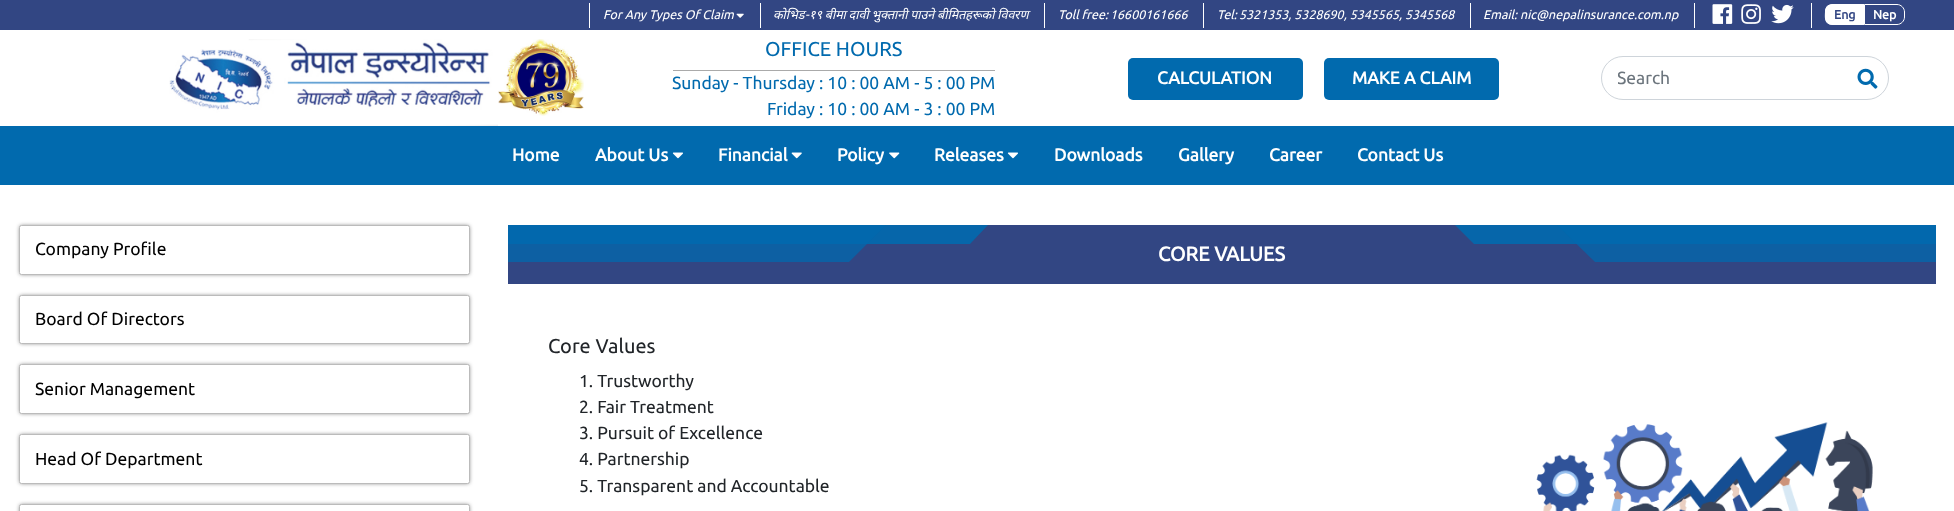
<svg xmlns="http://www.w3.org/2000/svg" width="1954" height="511">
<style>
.a{font:italic 12.5px Ubuntu;fill:#fff}
.b{font:italic 12.5px Noto Sans;fill:#fff}
.c{font:bold 12.5px Ubuntu;fill:#324683}
.d{font:bold 12.5px Ubuntu;fill:#fff}
.e{font:20px Ubuntu;fill:#016aae}
.f{font:17.5px Ubuntu;fill:#016aae}
.g{font:bold 17.5px Ubuntu;fill:#fff}
.h{font:17.5px Ubuntu;fill:#6c757d}
.i{font:17.5px Ubuntu;fill:#000}
.j{font:bold 20px Ubuntu;fill:#fff}
.k{font:20px Ubuntu;fill:#212529}
.l{font:17.5px Ubuntu;fill:#212529}
</style>
<defs>
<clipPath id="clip1"><path d="M508 225h1428v59H508z"/></clipPath>
<clipPath id="clip2"><path d="M1618 68h227v20H1618z"/></clipPath>
</defs>
<rect width="100%" height="100%" fill="#fff"/>
<path fill="#324683" d="M0 0h1954v30H0z"/>
<path fill="#fff" d="M589 3h1v25H589z"/>
<image href="1.png" x="736" y="13" width="8" height="5"/>
<path fill="#fff" d="M760 3h1v25H760z"/>
<path fill="#fff" d="M1044 3h1v25H1044z"/>
<path fill="#fff" d="M1203 3h1v25H1203z"/>
<path fill="#fff" d="M1470 3h1v25H1470z"/>
<path fill="#fff" d="M1694 3h1v25H1694z"/>
<image href="2.png" x="1712" y="4" width="21" height="20"/>
<image href="3.png" x="1741" y="4" width="20" height="20"/>
<image href="4.png" x="1771" y="4" width="23" height="20"/>
<path fill="#fff" d="M1811 3h1v25H1811z"/>
<path fill="#fff" d="M1833 4h31v21h-31c-4.5 0-8-3.5-8-8v-5c0-4.5 3.5-8 8-8z"/>
<path fill="#fff" d="M1832.5 4c-2 0-4 1-5.5 2l1 1c1-1.5 3-2 4.5-2h30l1-1zm31.5 21l-1.5-1h-30c-1.5 0-3.5-1-4.5-2l-1 1c1.5 1 3.5 2 5.5 2z"/>
<path fill="#fff" d="M1825 11c0 4-1 8.5 2 12l1-1c-2-2-2-5-2-8c0-2.5 0-5 2-7l-1-1c-1 1-2 3-2 5z"/>
<path fill="none" stroke="#fff" d="M1864.5 4.5h32.5c4 0 7.5 3.5 7.5 7.5v5c0 4-3.5 7.5-7.5 7.5h-32.5z"/>
<image href="5.png" x="169" y="39" width="415" height="87"/>
<path fill="#aaa" d="M673 70h322v1H673z"/>
<rect fill="#016aae" x="1128" y="58" width="175" height="42" rx="5"/>
<rect fill="#016aae" x="1324" y="58" width="175" height="42" rx="5"/>
<rect fill="none" stroke="#ced4da" x="1601.5" y="56.5" width="287" height="43" rx="21.5"/>
<image href="6.png" x="1857" y="68" width="21" height="21"/>
<path fill="#016aae" d="M0 126h1954v59H0z"/>
<image href="7.png" x="672" y="152" width="11" height="7"/>
<image href="8.png" x="791" y="152" width="11" height="7"/>
<image href="9.png" x="889" y="152" width="11" height="7"/>
<image href="7.png" x="1007" y="152" width="11" height="7"/>
<rect fill="#0000009e" filter="blur(2px)" x="20" y="226" width="449" height="48" rx="1"/>
<rect fill="#fff" stroke="#bbb" x="19.5" y="225.5" width="450" height="49" rx="2"/>
<rect fill="#0000009e" filter="blur(2px)" x="20" y="296" width="449" height="47" rx="1"/>
<rect fill="#fff" stroke="#bbb" x="19.5" y="295.5" width="450" height="48" rx="2"/>
<rect fill="#0000009e" filter="blur(2px)" x="20" y="365" width="449" height="48" rx="1"/>
<rect fill="#fff" stroke="#bbb" x="19.5" y="364.5" width="450" height="49" rx="2"/>
<rect fill="#0000009e" filter="blur(2px)" x="20" y="435" width="449" height="48" rx="1"/>
<rect fill="#fff" stroke="#bbb" x="19.5" y="434.5" width="450" height="49" rx="2"/>
<rect fill="#0000009e" filter="blur(2px)" x="20" y="505" width="449" height="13" rx="1"/>
<rect fill="#fff" stroke="#bbb" x="19.5" y="504.5" width="450" height="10" rx="2"/>
<path fill="#324683" d="M508 225h1428v59H508z"/>
<g clip-path="url(#clip1)">
<path fill="#0666aa" d="M431 225h557l-18 19h-558z"/>
<path fill="#0169aebf" d="M458 225h428l-37 37h-429z"/>
<path fill="#0666aa" d="M1455 225h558l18 19h-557z"/>
<path fill="#0169aebf" d="M1557 225h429l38 37h-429z"/>
</g>
<image href="10.png" x="1536" y="422" width="337" height="89"/>
<text class="a" x="603" y="19">For Any Types Of Claim</text>
<text class="b" x="773" y="19">कोभिड</text>
<text class="a" x="805" y="19">-</text>
<text class="b" x="809" y="19" word-spacing="-0.5">१९ बीमा दावी भुक्तानी पाउने बीमितहरूको विवरण</text>
<text class="a" x="1058" y="19">Toll free:</text>
<text class="a" x="1110" y="19">16600161666</text>
<text class="a" x="1217" y="19">Tel:</text>
<text class="a" x="1239" y="19">5321353, 5328690, 5345565, 5345568</text>
<text class="a" x="1483" y="19">Email:</text>
<text class="a" x="1520" y="19">nic@nepalinsurance.com.np</text>
<text class="c" x="1834" y="19">Eng</text>
<text class="d" x="1873" y="19">Nep</text>
<text class="e" x="765" y="56">OFFICE HOURS</text>
<text class="f" x="672" y="89">Sunday - Thursday : 10 : 00 AM - 5 : 00 PM</text>
<text class="f" x="767" y="115">Friday : 10 : 00 AM - 3 : 00 PM</text>
<text class="g" x="1157" y="84">CALCULATION</text>
<text class="g" x="1352" y="84">MAKE A CLAIM</text>
<g clip-path="url(#clip2)">
<text class="h" x="1617" y="84">Search</text>
</g>
<text class="g" x="512" y="161">Home</text>
<text class="g" x="595" y="161">About Us</text>
<text class="g" x="718" y="161">Financial</text>
<text class="g" x="837" y="161">Policy</text>
<text class="g" x="934" y="161">Releases</text>
<text class="g" x="1054" y="161">Downloads</text>
<text class="g" x="1178" y="161">Gallery</text>
<text class="g" x="1269" y="161">Career</text>
<text class="g" x="1357" y="161">Contact Us</text>
<text class="i" x="35" y="255">Company Profile</text>
<text class="i" x="35" y="325">Board Of Directors</text>
<text class="i" x="35" y="395">Senior Management</text>
<text class="i" x="35" y="465">Head Of Department</text>
<text class="j" x="1158" y="261">CORE VALUES</text>
<text class="k" x="548" y="353">Core Values</text>
<text class="l" x="579" y="387">1. Trustworthy</text>
<text class="l" x="579" y="413">2. Fair Treatment</text>
<text class="l" x="579" y="439">3. Pursuit of Excellence</text>
<text class="l" x="579" y="465">4. Partnership</text>
<text class="l" x="579" y="492">5. Transparent and Accountable</text>
</svg>
